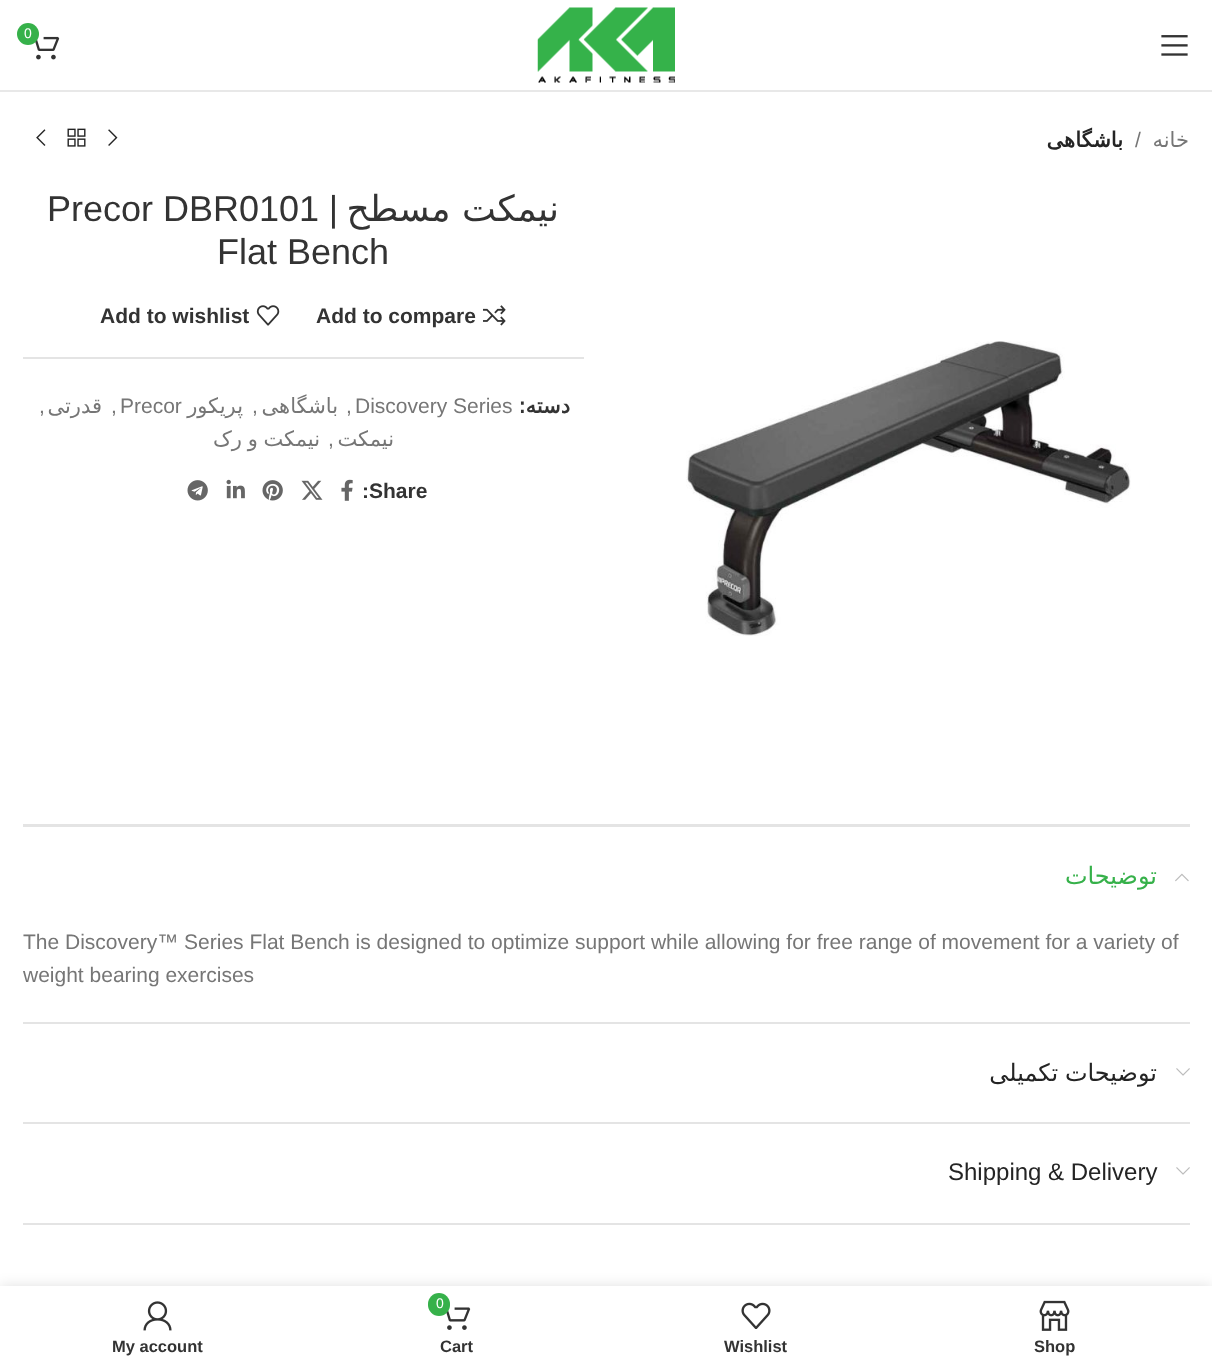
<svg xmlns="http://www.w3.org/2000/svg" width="1212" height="1367">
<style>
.a{font:14px Liberation Sans;fill:#fff}
.b{font:bold 21px DejaVu Sans;direction:rtl;fill:#242424}
.c{font:21px Liberation Sans;fill:#767676}
.d{font:21px DejaVu Sans;direction:rtl;fill:#767676}
.e{font:36px Liberation Sans;fill:#333}
.f{font:36px Liberation Sans;direction:rtl;fill:#333}
.g{font:36px DejaVu Sans;direction:rtl;fill:#333}
.h{font:bold 21px Liberation Sans;fill:#333}
.i{font:bold 21px DejaVu Sans;direction:rtl;fill:#333}
.j{font:24px DejaVu Sans;direction:rtl;fill:#36b14a}
.k{font:24px DejaVu Sans;direction:rtl;fill:#242424}
.l{font:24px Liberation Sans;fill:#242424}
.m{font:bold 16.5px Liberation Sans;fill:#333}
</style>
<rect width="100%" height="100%" fill="#fff"/>
<path fill="#e8e8e8" d="M0 90h1212v2H0z"/>
<image href="1.png" x="35" y="36" width="25" height="24"/>
<circle fill="#36b14a" cx="28" cy="34" r="11"/>
<image href="2.png" x="537" y="7" width="138" height="76"/>
<image href="3.png" x="1161" y="35" width="27" height="21"/>
<image href="4.png" x="36" y="129" width="10" height="17"/>
<image href="5.png" x="67" y="128" width="19" height="19"/>
<image href="6.png" x="108" y="129" width="10" height="17"/>
<image href="7.png" x="256" y="305" width="24" height="21"/>
<image href="8.png" x="483" y="305" width="23" height="21"/>
<path fill="#e4e4e4" d="M23 357h561v2H23z"/>
<image href="9.png" x="187" y="480" width="21" height="21"/>
<image href="10.png" x="226" y="479" width="19" height="20"/>
<image href="11.png" x="262" y="480" width="21" height="21"/>
<image href="12.png" x="301" y="480" width="22" height="20"/>
<image href="13.png" x="341" y="479" width="12" height="22"/>
<image href="14.png" x="686" y="341" width="445" height="295"/>
<path fill="#e4e4e4" d="M23 824h1167v3H23z"/>
<path fill="#e4e4e4" d="M23 1022h1167v2H23z"/>
<image href="15.png" x="1175" y="873" width="14" height="9"/>
<path fill="#e4e4e4" d="M23 1122h1167v2H23z"/>
<image href="16.png" x="1176" y="1068" width="14" height="8"/>
<path fill="#e4e4e4" d="M23 1223h1167v2H23z"/>
<image href="16.png" x="1176" y="1167" width="14" height="8"/>
<path fill="#0000001f" filter="blur(7px)" d="M0 1286h1212v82H0z"/>
<path fill="#fff" d="M0 1286h1212v81H0z"/>
<image href="17.png" x="143" y="1301" width="29" height="30"/>
<image href="18.png" x="446" y="1307" width="25" height="23"/>
<rect fill="#36b14a" x="428" y="1293" width="22" height="23" rx="11"/>
<image href="19.png" x="741" y="1302" width="30" height="27"/>
<image href="20.png" x="1039" y="1300" width="31" height="31"/>
<text class="a" x="24" y="38">0</text>
<text class="b" x="1123" y="147">باشگاهی</text>
<text class="c" x="1135" y="147">/</text>
<text class="d" x="1189" y="147">خانه</text>
<text class="e" x="47" y="221">Precor DBR0101</text>
<text class="f" x="338" y="221">|</text>
<text class="g" x="559" y="221">نیمکت مسطح</text>
<text class="e" x="217" y="264">Flat Bench</text>
<text class="h" x="100" y="323">Add to wishlist</text>
<text class="h" x="316" y="323">Add to compare</text>
<text class="c" x="39" y="413">,</text>
<text class="d" x="102" y="413">قدرتی</text>
<text class="c" x="111" y="413">,</text>
<text class="c" x="120" y="413">Precor</text>
<text class="d" x="243" y="413">پریکور</text>
<text class="c" x="252" y="413">,</text>
<text class="d" x="338" y="413">باشگاهی</text>
<text class="c" x="346" y="413">,</text>
<text class="c" x="355" y="413">Discovery Series</text>
<text class="i" x="570" y="413">دسته:</text>
<text class="d" x="320" y="446" word-spacing="-1">نیمکت و رک</text>
<text class="c" x="328" y="446">,</text>
<text class="d" x="394" y="446">نیمکت</text>
<text class="h" x="362" y="498">:Share</text>
<text class="j" x="1157" y="884">توضیحات</text>
<text class="c" x="23" y="949">The Discovery™ Series Flat Bench is designed to optimize support while allowing for free range of movement for a variety of</text>
<text class="c" x="23" y="982">weight bearing exercises</text>
<text class="k" x="1157" y="1081" word-spacing="-1">توضیحات تکمیلی</text>
<text class="l" x="948" y="1180">Shipping &amp; Delivery</text>
<text class="m" x="112" y="1352">My account</text>
<text class="a" x="436" y="1308">0</text>
<text class="m" x="440" y="1352">Cart</text>
<text class="m" x="724" y="1352">Wishlist</text>
<text class="m" x="1034" y="1352">Shop</text>
</svg>
